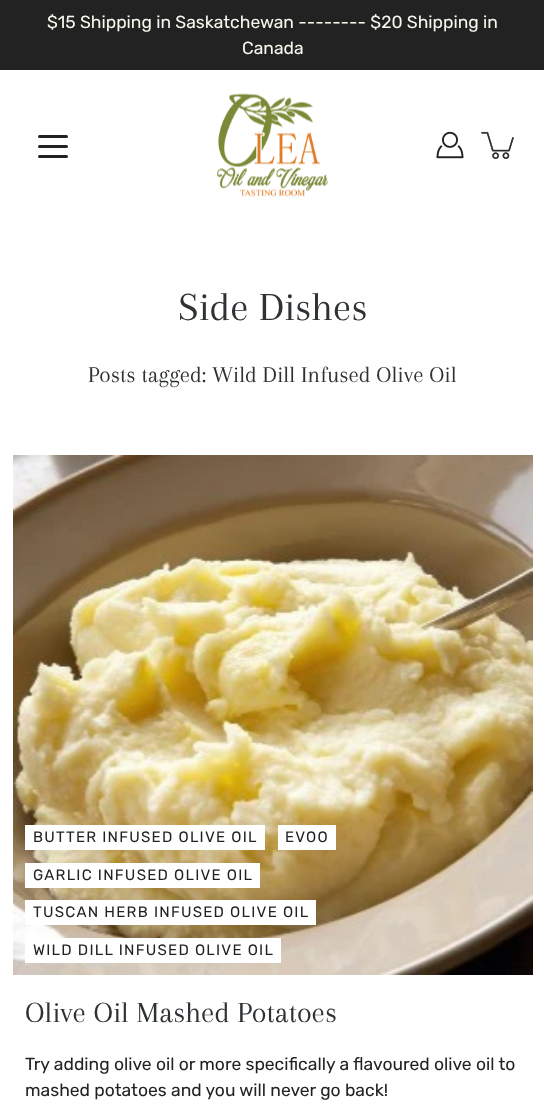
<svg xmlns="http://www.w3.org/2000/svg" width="544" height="1120">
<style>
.a{font:17.5px Rubik;fill:#f9f8ec}
.b{font:41.25px Arapey;fill:#2e3234}
.c{font:23.4px Arapey;fill:#2e3234}
.d{font:15px Rubik;letter-spacing:1.25px;fill:#222}
.e{font:30.25px Arapey;fill:#2e3234}
.f{font:17.5px Rubik;fill:#222}
</style>
<rect width="100%" height="100%" fill="#fff"/>
<path fill="#222" d="M0 0h544v70H0z"/>
<image href="1.png" x="217" y="93" width="111" height="104"/>
<rect fill="#222" x="38" y="145" width="30" height="3" rx="1.5"/>
<rect fill="#222" x="38" y="135" width="30" height="3" rx="1.5"/>
<rect fill="#222" x="38" y="155" width="30" height="3" rx="1.5"/>
<image href="2.png" x="436" y="131" width="28" height="28"/>
<image href="3.png" x="481" y="131" width="33" height="28"/>
<image href="4.png" x="13" y="455" width="520" height="520"/>
<path fill="#fff" d="M25 825h240v25H25z"/>
<path fill="#fff" d="M278 825h58v25H278z"/>
<path fill="#fff" d="M25 863h235v25H25z"/>
<path fill="#fff" d="M25 900h291v25H25z"/>
<path fill="#fff" d="M25 938h256v25H25z"/>
<text class="a" x="47" y="28">$15 Shipping in Saskatchewan -------- $20 Shipping in</text>
<text class="a" x="242" y="54">Canada</text>
<text class="b" x="178" y="320">Side Dishes</text>
<text class="c" x="88" y="382">Posts tagged: Wild Dill Infused Olive Oil</text>
<text class="d" x="33" y="842">BUTTER INFUSED OLIVE OIL</text>
<text class="d" x="285" y="842">EVOO</text>
<text class="d" x="33" y="880">GARLIC INFUSED OLIVE OIL</text>
<text class="d" x="33" y="917">TUSCAN HERB INFUSED OLIVE OIL</text>
<text class="d" x="33" y="955">WILD DILL INFUSED OLIVE OIL</text>
<text class="e" x="25" y="1022">Olive Oil Mashed Potatoes</text>
<text class="f" x="25" y="1070">Try adding olive oil or more specifically a flavoured olive oil to</text>
<text class="f" x="25" y="1096">mashed potatoes and you will never go back!</text>
</svg>
